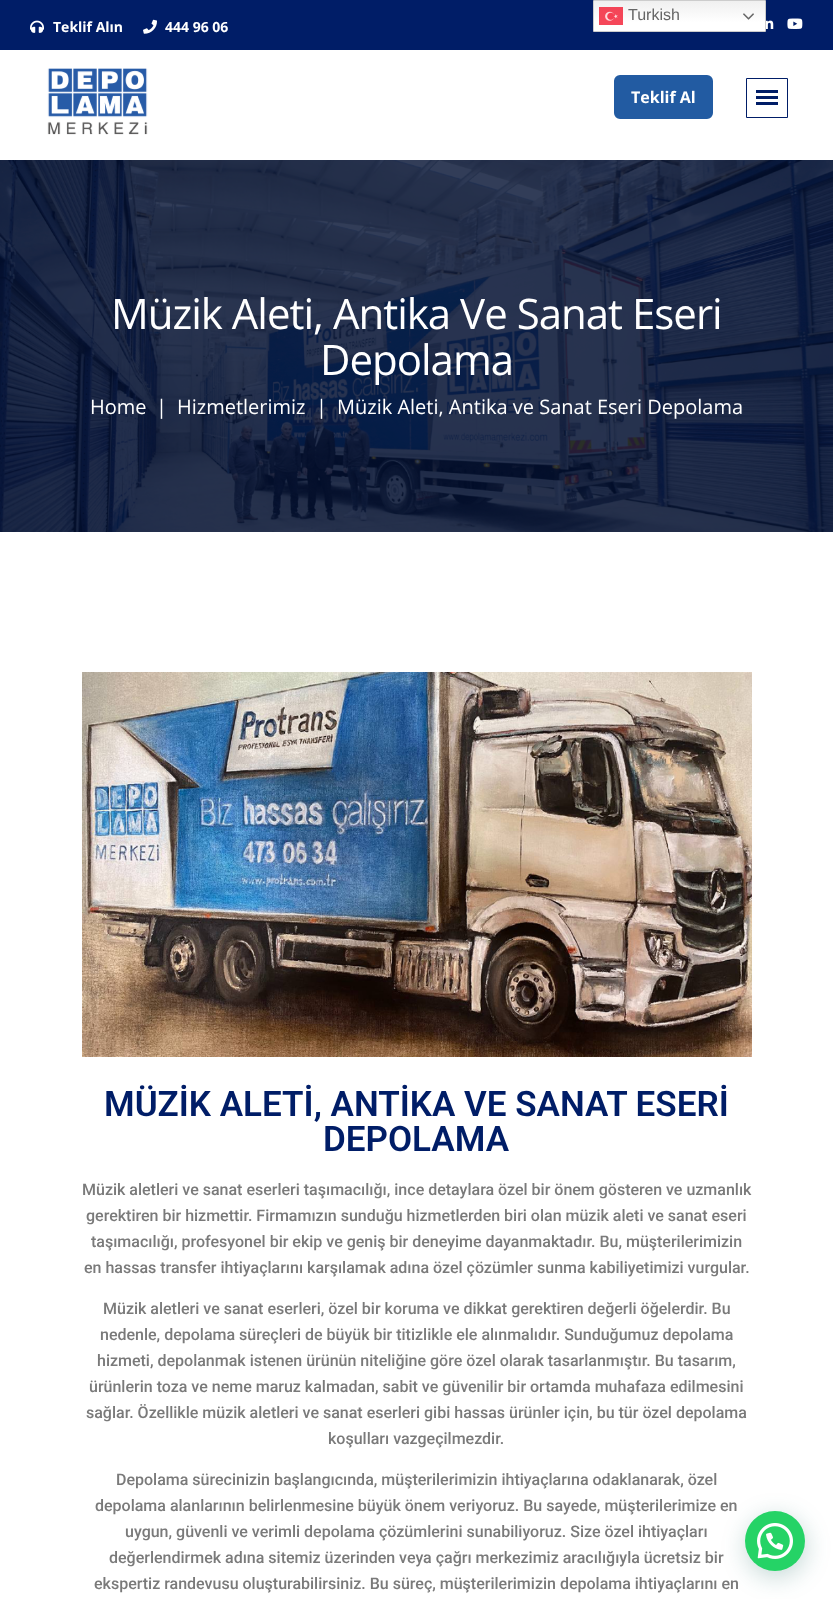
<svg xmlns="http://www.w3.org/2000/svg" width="833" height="1599">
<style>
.a{font:16px Liberation Sans;fill:#666}
.b{font:bold 14px Open Sans;fill:#fff}
.c{font:bold 16px Open Sans;fill:#fff}
.d{font:42px Open Sans;letter-spacing:-1px;fill:#fff}
.e{font:20px Open Sans;fill:#fff}
.f{font:600 35px Roboto;fill:#001d67}
.g{font:500 16px Roboto;fill:#7a7a7a}
</style>
<defs>
<linearGradient id="g1" gradientUnits="userSpaceOnUse" x1="680" y1="0" x2="680" y2="32"><stop offset="0" stop-color="#efefef"/><stop offset="0.7" stop-color="#fff"/></linearGradient>
</defs>
<rect width="100%" height="100%" fill="#fff"/>
<path fill="#001d67" d="M0 0h833v50H0z"/>
<path fill="url(#g1)" d="M594 1h171v30H594z"/>
<path fill="none" stroke="#ccc" d="M593.5 0.5h172v31H593.5z"/>
<image href="1.png" x="599" y="7" width="24" height="18"/>
<image href="2.png" x="743" y="13" width="11" height="7"/>
<image href="3.png" x="30" y="20" width="14" height="13"/>
<image href="4.png" x="143" y="19" width="14" height="15"/>
<image href="5.png" x="766" y="20" width="8" height="9"/>
<image href="6.png" x="787" y="18" width="16" height="11"/>
<image href="7.png" x="47" y="68" width="101" height="67"/>
<rect fill="#225ba2" stroke="#225ba2" stroke-width="2" x="615" y="76" width="97" height="42" rx="5"/>
<path fill="none" stroke="#001d67" d="M746.5 78.5h41v39H746.5z"/>
<path fill="#001d67" d="M756 90h22v3H756z"/>
<path fill="#001d67" d="M756 96h22v3H756z"/>
<path fill="#001d67" d="M756 102h22v3H756z"/>
<image href="8.png" x="0" y="160" width="833" height="372"/>
<image href="9.png" x="82" y="672" width="670" height="385"/>
<rect fill="#075e543d" filter="blur(12px)" x="746" y="1517" width="60" height="60" rx="30"/>
<circle fill="#25d366" cx="775" cy="1541" r="30"/>
<image href="10.png" x="757" y="1523" width="36" height="36"/>
<text class="a" x="628" y="20">Turkish</text>
<text class="b" x="53" y="32">Teklif Alın</text>
<text class="b" x="165" y="32">444 96 06</text>
<text class="c" x="631" y="103">Teklif Al</text>
<text class="d" x="111" y="329">Müzik Aleti, Antika Ve Sanat Eseri</text>
<text class="d" x="320" y="375">Depolama</text>
<text class="e" x="90" y="414">Home</text>
<text class="e" x="156" y="414">|</text>
<text class="e" x="177" y="414">Hizmetlerimiz</text>
<text class="e" x="316" y="414">|</text>
<text class="e" x="337" y="414">Müzik Aleti, Antika ve Sanat Eseri Depolama</text>
<text class="f" x="104" y="1116">MÜZİK ALETİ, ANTİKA VE SANAT ESERİ</text>
<text class="f" x="323" y="1151">DEPOLAMA</text>
<text class="g" x="82" y="1195">Müzik aletleri ve sanat eserleri taşımacılığı, ince detaylara özel bir önem gösteren ve uzmanlık</text>
<text class="g" x="86" y="1221">gerektiren bir hizmettir. Firmamızın sunduğu hizmetlerden biri olan müzik aleti ve sanat eseri</text>
<text class="g" x="91" y="1247">taşımacılığı, profesyonel bir ekip ve geniş bir deneyime dayanmaktadır. Bu, müşterilerimizin</text>
<text class="g" x="84" y="1273">en hassas transfer ihtiyaçlarını karşılamak adına özel çözümler sunma kabiliyetimizi vurgular.</text>
<text class="g" x="103" y="1314">Müzik aletleri ve sanat eserleri, özel bir koruma ve dikkat gerektiren değerli öğelerdir. Bu</text>
<text class="g" x="100" y="1340">nedenle, depolama süreçleri de büyük bir titizlikle ele alınmalıdır. Sunduğumuz depolama</text>
<text class="g" x="97" y="1366">hizmeti, depolanmak istenen ürünün niteliğine göre özel olarak tasarlanmıştır. Bu tasarım,</text>
<text class="g" x="89" y="1392">ürünlerin toza ve neme maruz kalmadan, sabit ve güvenilir bir ortamda muhafaza edilmesini</text>
<text class="g" x="86" y="1418">sağlar. Özellikle müzik aletleri ve sanat eserleri gibi hassas ürünler için, bu tür özel depolama</text>
<text class="g" x="328" y="1444">koşulları vazgeçilmezdir.</text>
<text class="g" x="116" y="1485">Depolama sürecinizin başlangıcında, müşterilerimizin ihtiyaçlarına odaklanarak, özel</text>
<text class="g" x="95" y="1511">depolama alanlarının belirlenmesine büyük önem veriyoruz. Bu sayede, müşterilerimize en</text>
<text class="g" x="125" y="1537">uygun, güvenli ve verimli depolama çözümlerini sunabiliyoruz. Size özel ihtiyaçları</text>
<text class="g" x="109" y="1563">değerlendirmek adına sitemiz üzerinden veya çağrı merkezimiz aracılığıyla ücretsiz bir</text>
<text class="g" x="94" y="1589">ekspertiz randevusu oluşturabilirsiniz. Bu süreç, müşterilerimizin depolama ihtiyaçlarını en</text>
</svg>
